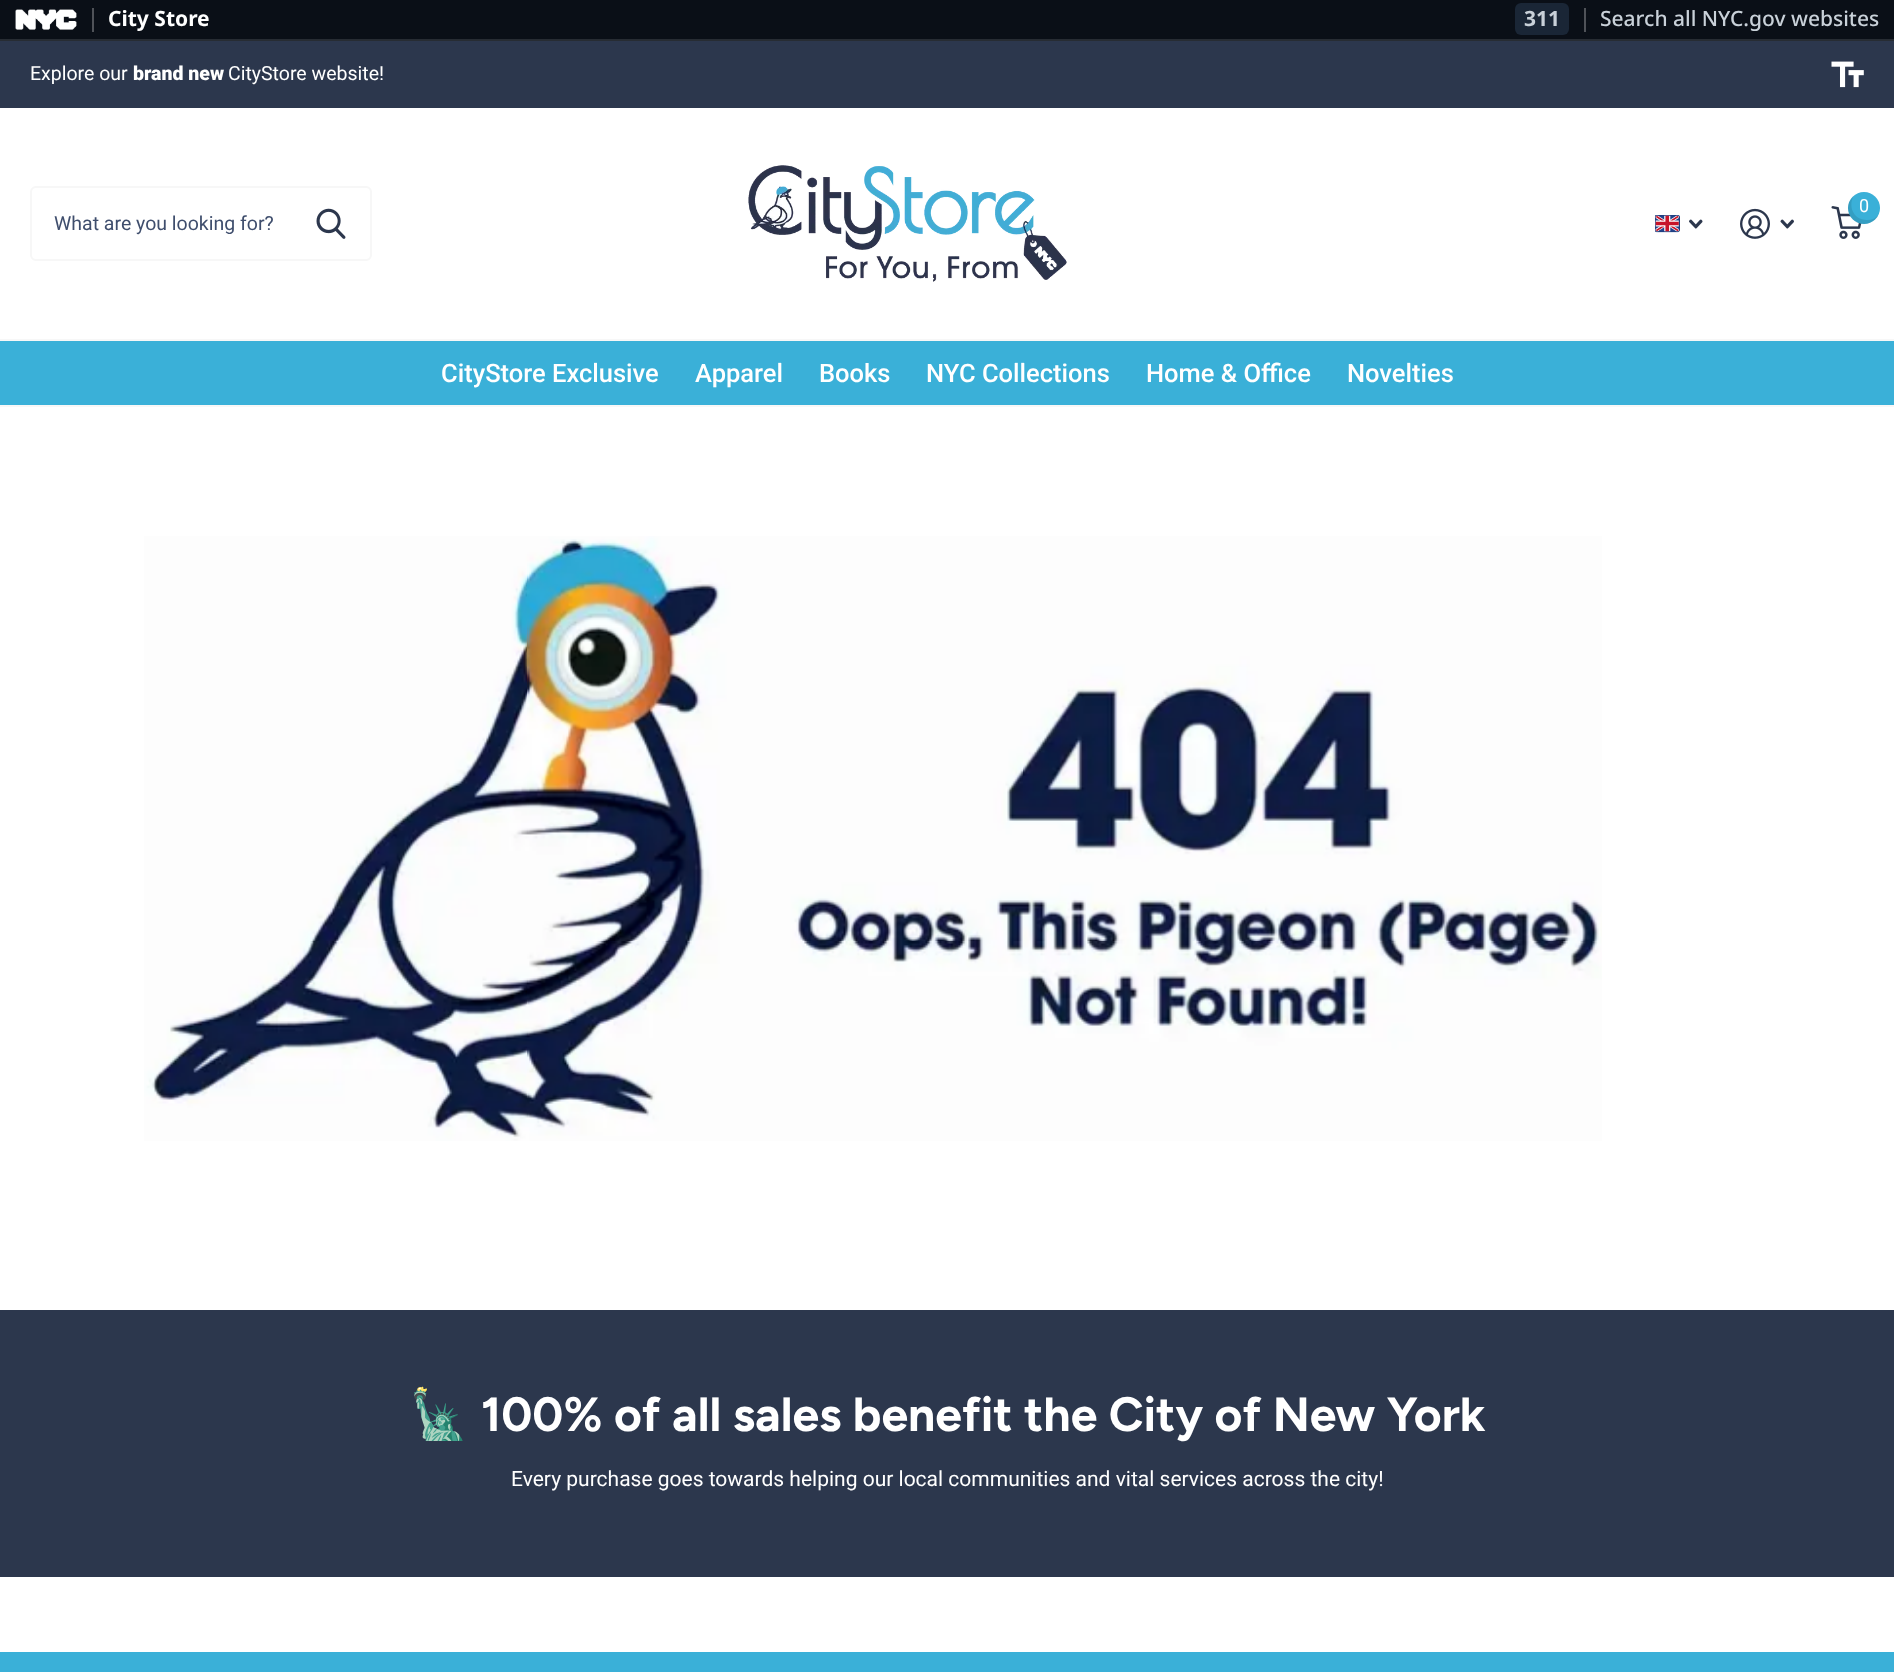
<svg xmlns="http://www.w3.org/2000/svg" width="1894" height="1672">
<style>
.a{font:bold 21px Noto Sans;fill:#fff}
.b{font:bold 21px Noto Sans;fill:#c9d1d9}
.c{font:500 21px Noto Sans;fill:#c9d1d9}
.d{font:19.5px Roboto;fill:#fff}
.e{font:900 19.5px Roboto;fill:#fff}
.f{font:18px Roboto;fill:#fff}
.g{font:19.5px Roboto;fill:#3f4e6d}
.h{font:500 25.5px Roboto;fill:#fff}
.i{font:bold 48px Noto Color Emoji;fill:#fff}
.j{font:bold 48px Figtree;fill:#fff}
.k{font:21px Roboto;fill:#fff}
</style>
<rect width="100%" height="100%" fill="#fff"/>
<path fill="#0a0f17" d="M0 0h1894v39H0z"/>
<path fill="#272c33" d="M0 39h1894v2H0z"/>
<image href="1.png" x="15" y="9" width="62" height="21"/>
<path fill="#4f5258" d="M92 8h2v24H92z"/>
<rect fill="#1a2636" x="1515" y="3" width="54" height="32" rx="6"/>
<path fill="#4f5258" d="M1584 8h2v24H1584z"/>
<path fill="#2c374d" d="M0 41h1894v67H0z"/>
<image href="2.png" x="1831" y="61" width="33" height="27"/>
<image href="3.png" x="748" y="165" width="319" height="117"/>
<image href="4.png" x="1831" y="206" width="31" height="33"/>
<circle fill="#3ab0d8" cx="1864" cy="208" r="16"/>
<path fill="#0000001a" d="M1878.5 215c-2.5 3-6.5 5-11.5 5c-14.5 0-19-15-13-24.5c-14.5 12-.5 35 16.5 27c3.5-1.5 6.5-4 8-7.5z"/>
<image href="5.png" x="1655" y="215" width="25" height="18"/>
<image href="6.png" x="1689" y="219" width="14" height="10"/>
<image href="7.png" x="1740" y="208" width="30" height="31"/>
<image href="8.png" x="1780" y="219" width="14" height="10"/>
<rect fill="none" stroke="#f7f7f7" stroke-width="2" x="31" y="187" width="340" height="73" rx="5"/>
<image href="9.png" x="316" y="208" width="30" height="31"/>
<path fill="#3ab0d8" d="M0 341h1894v64H0z"/>
<path fill="#f7f7f7" d="M0 339h1894v2H0z"/>
<path fill="#f7f7f7" d="M0 405h1894v2H0z"/>
<image href="10.png" x="144" y="536" width="1458" height="605"/>
<path fill="#2c374d" d="M0 1310h1894v267H0z"/>
<path fill="#3ab0d8" d="M0 1652h1894v20H0z"/>
<text class="a" x="108" y="26">City Store</text>
<text class="b" x="1524" y="26">311</text>
<text class="c" x="1600" y="26">Search all NYC.gov websites</text>
<text class="d" x="30" y="80">Explore our</text>
<text class="e" x="133" y="80">brand new</text>
<text class="d" x="228" y="80">CityStore website!</text>
<text class="f" x="1859" y="212">0</text>
<text class="g" x="54" y="230">What are you looking for?</text>
<text class="h" x="441" y="382">CityStore Exclusive</text>
<text class="h" x="695" y="382">Apparel</text>
<text class="h" x="819" y="382">Books</text>
<text class="h" x="926" y="382">NYC Collections</text>
<text class="h" x="1146" y="382">Home &amp; Office</text>
<text class="h" x="1347" y="382">Novelties</text>
<text class="i" x="409" y="1431">🗽</text>
<text class="j" x="481" y="1431">100% of all sales benefit the City of New York</text>
<text class="k" x="511" y="1486">Every purchase goes towards helping our local communities and vital services across the city!</text>
</svg>
